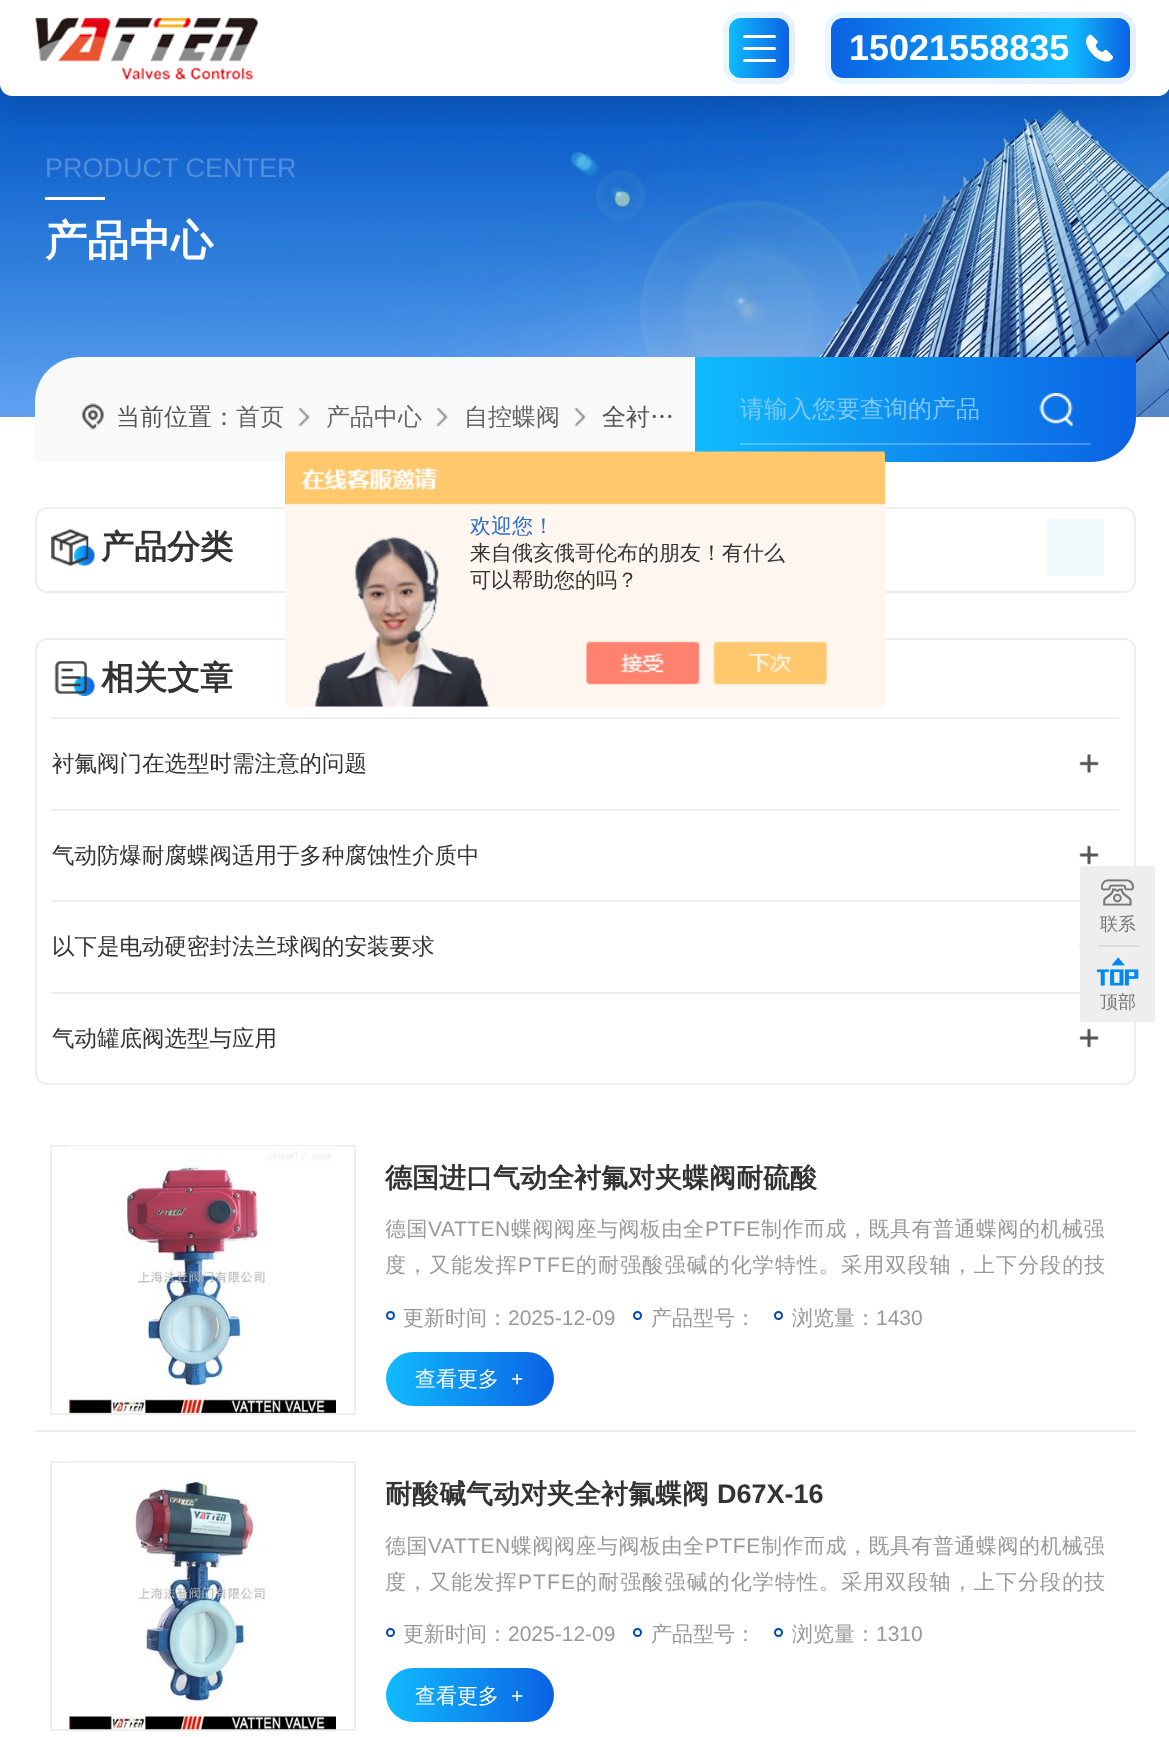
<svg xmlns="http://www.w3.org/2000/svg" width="1169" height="1737">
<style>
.a{font:bold 36px Liberation Sans;fill:#fff}
.b{font:27px Liberation Sans;fill:#528edb}
.c{font:bold 42px WenQuanYi Zen Hei;fill:#fff}
.d{font:500 24px WenQuanYi Zen Hei;fill:#555}
.e{font:500 24px WenQuanYi Zen Hei;fill:#666}
.f{font:500 24px WenQuanYi Zen Hei;fill:#7bc8f9}
.g{font:500 21px WenQuanYi Zen Hei;fill:#2e6ec6}
.h{font:500 21px WenQuanYi Zen Hei;fill:#333}
.i{font:bold 33px WenQuanYi Zen Hei;fill:#333}
.j{font:500 22.5px WenQuanYi Zen Hei;fill:#333}
.k{font:bold 27px WenQuanYi Zen Hei;fill:#333}
.l{font:500 21px WenQuanYi Zen Hei;letter-spacing:0.5px;fill:#999}
.m{font:21px Liberation Sans;letter-spacing:0.5px;fill:#999}
.n{font:500 21px WenQuanYi Zen Hei;letter-spacing:1.1px;fill:#999}
.o{font:21px Liberation Sans;letter-spacing:1.1px;fill:#999}
.p{font:500 21px WenQuanYi Zen Hei;fill:#999}
.q{font:21px Liberation Sans;fill:#999}
.r{font:500 21px WenQuanYi Zen Hei;fill:#fff}
.s{font:21px Liberation Sans;fill:#fff}
.t{font:bold 27px Liberation Sans;fill:#333}
.u{font:500 18px WenQuanYi Zen Hei;fill:#777}
</style>
<defs>
<linearGradient id="g1" gradientUnits="userSpaceOnUse" x1="723" y1="48" x2="795" y2="48"><stop offset="0" stop-color="#e7f8ff"/><stop offset="1" stop-color="#e7effc"/></linearGradient>
<linearGradient id="g2" gradientUnits="userSpaceOnUse" x1="729" y1="48" x2="789" y2="48"><stop offset="0" stop-color="#10bbfe"/><stop offset="1" stop-color="#0b62e3"/></linearGradient>
<linearGradient id="g3" gradientUnits="userSpaceOnUse" x1="825" y1="48" x2="1136" y2="48"><stop offset="0" stop-color="#e7f8ff"/><stop offset="1" stop-color="#e7effc"/></linearGradient>
<linearGradient id="g4" gradientUnits="userSpaceOnUse" x1="831" y1="48" x2="1070" y2="48"><stop offset="0" stop-color="#0b62e3"/><stop offset="1" stop-color="#10bbfe"/></linearGradient>
<linearGradient id="g5" gradientUnits="userSpaceOnUse" x1="1070" y1="48" x2="1130" y2="48"><stop offset="0" stop-color="#10bbfe"/><stop offset="1" stop-color="#0b62e3"/></linearGradient>
<linearGradient id="g6" gradientUnits="userSpaceOnUse" x1="695" y1="410" x2="1136" y2="410"><stop offset="0" stop-color="#10bbfe"/><stop offset="1" stop-color="#0b62e3"/></linearGradient>
<linearGradient id="g7" gradientUnits="userSpaceOnUse" x1="695" y1="410" x2="1136" y2="410"><stop offset="0" stop-color="#4cccfe"/><stop offset="1" stop-color="#4889ea"/></linearGradient>
<linearGradient id="g8" gradientUnits="userSpaceOnUse" x1="386" y1="1379" x2="554" y2="1379"><stop offset="0" stop-color="#10bbfe"/><stop offset="1" stop-color="#0b62e3"/></linearGradient>
<linearGradient id="g9" gradientUnits="userSpaceOnUse" x1="386" y1="1695" x2="554" y2="1695"><stop offset="0" stop-color="#10bbfe"/><stop offset="1" stop-color="#0b62e3"/></linearGradient>
<clipPath id="clip1"><path d="M386 1211h720v72H386z"/></clipPath>
<clipPath id="clip2"><path d="M386 1527h720v72H386z"/></clipPath>
</defs>
<rect width="100%" height="100%" fill="#fff"/>
<image href="3.png" x="0" y="84" width="1169" height="333"/>
<rect fill="#0000001a" filter="blur(15px)" y="15" width="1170" height="96" rx="12"/>
<path fill="#fff" d="M0 0h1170v84c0 6.5-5.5 12-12 12h-1146c-6.5 0-12-5.5-12-12z"/>
<image href="1.png" x="35" y="17" width="223" height="63"/>
<rect fill="url(#g1)" x="723" y="12" width="72" height="72" rx="18"/>
<rect fill="url(#g2)" x="729" y="18" width="60" height="60" rx="12"/>
<rect fill="#fff" x="743" y="35" width="33" height="3" rx="1.5"/>
<rect fill="#fff" x="743" y="47" width="33" height="3" rx="1.5"/>
<rect fill="#fff" x="743" y="59" width="33" height="3" rx="1.5"/>
<rect fill="url(#g3)" x="825" y="12" width="311" height="72" rx="18"/>
<path fill="url(#g4)" d="M843 18h227v60h-227c-6.5 0-12-5.5-12-12v-36c0-6.5 5.5-12 12-12z"/>
<path fill="url(#g5)" d="M1070 18h48c6.5 0 12 5.5 12 12v36c0 6.5-5.5 12-12 12h-48z"/>
<image href="2.png" x="1086" y="34" width="27" height="28"/>
<path fill="#fff" d="M45 197h60v3H45z"/>
<path fill="#f9f9f9" d="M80 357h1056v60c0 25-20 45-45 45h-1056v-60c0-25 20-45 45-45z"/>
<image href="4.png" x="82" y="403" width="22" height="27"/>
<image href="5.png" x="298" y="408" width="12" height="18"/>
<image href="5.png" x="436" y="408" width="12" height="18"/>
<image href="5.png" x="574" y="408" width="12" height="18"/>
<path fill="url(#g6)" d="M695 357h441v60c0 25-20 45-45 45h-396z"/>
<path fill="url(#g7)" d="M740 443h351v2H740z"/>
<image href="6.png" x="1039" y="393" width="34" height="33"/>
<rect fill="none" stroke="#eee" stroke-width="2" x="36" y="508" width="1099" height="84" rx="11"/>
<rect fill="none" stroke="#eee" stroke-width="2" x="36" y="639" width="1099" height="445" rx="11"/>
<image href="7.png" x="285" y="451" width="600" height="256"/>
<image href="8.png" x="51" y="529" width="44" height="37"/>
<path fill="#f0fafd" d="M1047 519h57v57H1047z"/>
<image href="9.png" x="54" y="661" width="41" height="35"/>
<path fill="#eee" d="M51 717h1068v2H51z"/>
<image href="10.png" x="1079" y="754" width="20" height="19"/>
<path fill="#eee" d="M51 809h1068v2H51z"/>
<image href="11.png" x="1079" y="845" width="20" height="20"/>
<path fill="#eee" d="M51 900h1029v2H51z"/>
<image href="12.png" x="1079" y="945" width="1" height="3"/>
<path fill="#eee" d="M51 992h1029v2H51z"/>
<image href="11.png" x="1079" y="1028" width="20" height="20"/>
<path fill="#eee" d="M35 1430h1101v2H35z"/>
<path fill="none" stroke="#eee" stroke-width="2" d="M51 1146h304v268H51z"/>
<image href="13.png" x="69" y="1146" width="267" height="267"/>
<circle fill="none" stroke="#0048b5" stroke-width="2" cx="390.5" cy="1315.5" r="3.5"/>
<circle fill="none" stroke="#0048b5" stroke-width="2" cx="637.5" cy="1315.5" r="3.5"/>
<circle fill="none" stroke="#0048b5" stroke-width="2" cx="778.5" cy="1315.5" r="3.5"/>
<rect fill="url(#g8)" x="386" y="1352" width="168" height="54" rx="27"/>
<path fill="none" stroke="#eee" stroke-width="2" d="M51 1462h304v268H51z"/>
<image href="14.png" x="69" y="1462" width="267" height="268"/>
<circle fill="none" stroke="#0048b5" stroke-width="2" cx="390.5" cy="1632.5" r="3.5"/>
<circle fill="none" stroke="#0048b5" stroke-width="2" cx="637.5" cy="1632.5" r="3.5"/>
<circle fill="none" stroke="#0048b5" stroke-width="2" cx="778.5" cy="1632.5" r="3.5"/>
<rect fill="url(#g9)" x="386" y="1668" width="168" height="54" rx="27"/>
<rect fill="#eee" x="1080" y="866" width="75" height="156" rx="3"/>
<image href="15.png" x="1101" y="879" width="33" height="27"/>
<path fill="#ddd" d="M1098 945h42v2H1098z"/>
<image href="16.png" x="1097" y="957" width="42" height="29"/>
<text class="a" x="849" y="60">15021558835</text>
<text class="b" x="45" y="177">PRODUCT CENTER</text>
<text class="c" x="45" y="255">产品中心</text>
<text class="d" x="116" y="425">当前位置：</text>
<text class="e" x="236" y="425">首页</text>
<text class="e" x="326" y="425">产品中心</text>
<text class="e" x="464" y="425">自控蝶阀</text>
<text class="d" x="602" y="425">全衬…</text>
<text class="f" x="740" y="417">请输入您要查询的产品</text>
<text class="g" x="470" y="533">欢迎您！</text>
<text class="h" x="470" y="560">来自俄亥俄哥伦布的朋友！有什么</text>
<text class="h" x="470" y="587">可以帮助您的吗？</text>
<text class="i" x="101" y="558">产品分类</text>
<text class="i" x="101" y="689">相关文章</text>
<text class="j" x="52" y="771">衬氟阀门在选型时需注意的问题</text>
<text class="j" x="52" y="863">气动防爆耐腐蝶阀适用于多种腐蚀性介质中</text>
<text class="j" x="52" y="954">以下是电动硬密封法兰球阀的安装要求</text>
<text class="j" x="52" y="1046">气动罐底阀选型与应用</text>
<text class="k" x="385" y="1187">德国进口气动全衬氟对夹蝶阀耐硫酸</text>
<g clip-path="url(#clip1)">
<text class="l" x="385" y="1236">德国</text>
</g>
<text class="m" x="428" y="1236">VATTEN</text>
<text class="l" x="511" y="1236">蝶阀阀座与阀板由全</text>
<text class="m" x="705" y="1236">PTFE</text>
<text class="l" x="761" y="1236">制作而成，既具有普通蝶阀的机械强</text>
<text class="n" x="385" y="1272">度，又能发挥</text>
<text class="o" x="518" y="1272">PTFE</text>
<text class="n" x="576" y="1272">的耐强酸强碱的化学特性。采用双段轴，上下分段的技</text>
<text class="p" x="403" y="1325">更新时间：</text>
<text class="q" x="508" y="1325">2025-12-09</text>
<text class="p" x="651" y="1325">产品型号：</text>
<text class="p" x="792" y="1325">浏览量：</text>
<text class="q" x="876" y="1325">1430</text>
<text class="r" x="415" y="1386">查看更多</text>
<text class="s" x="511" y="1386">+</text>
<text class="k" x="385" y="1503">耐酸碱气动对夹全衬氟蝶阀</text>
<text class="t" x="717" y="1503">D67X-16</text>
<g clip-path="url(#clip2)">
<text class="l" x="385" y="1553">德国</text>
</g>
<text class="m" x="428" y="1553">VATTEN</text>
<text class="l" x="511" y="1553">蝶阀阀座与阀板由全</text>
<text class="m" x="705" y="1553">PTFE</text>
<text class="l" x="761" y="1553">制作而成，既具有普通蝶阀的机械强</text>
<text class="n" x="385" y="1589">度，又能发挥</text>
<text class="o" x="518" y="1589">PTFE</text>
<text class="n" x="576" y="1589">的耐强酸强碱的化学特性。采用双段轴，上下分段的技</text>
<text class="p" x="403" y="1641">更新时间：</text>
<text class="q" x="508" y="1641">2025-12-09</text>
<text class="p" x="651" y="1641">产品型号：</text>
<text class="p" x="792" y="1641">浏览量：</text>
<text class="q" x="876" y="1641">1310</text>
<text class="r" x="415" y="1703">查看更多</text>
<text class="s" x="511" y="1703">+</text>
<text class="u" x="1100" y="930">联系</text>
<text class="u" x="1100" y="1008">顶部</text>
</svg>
